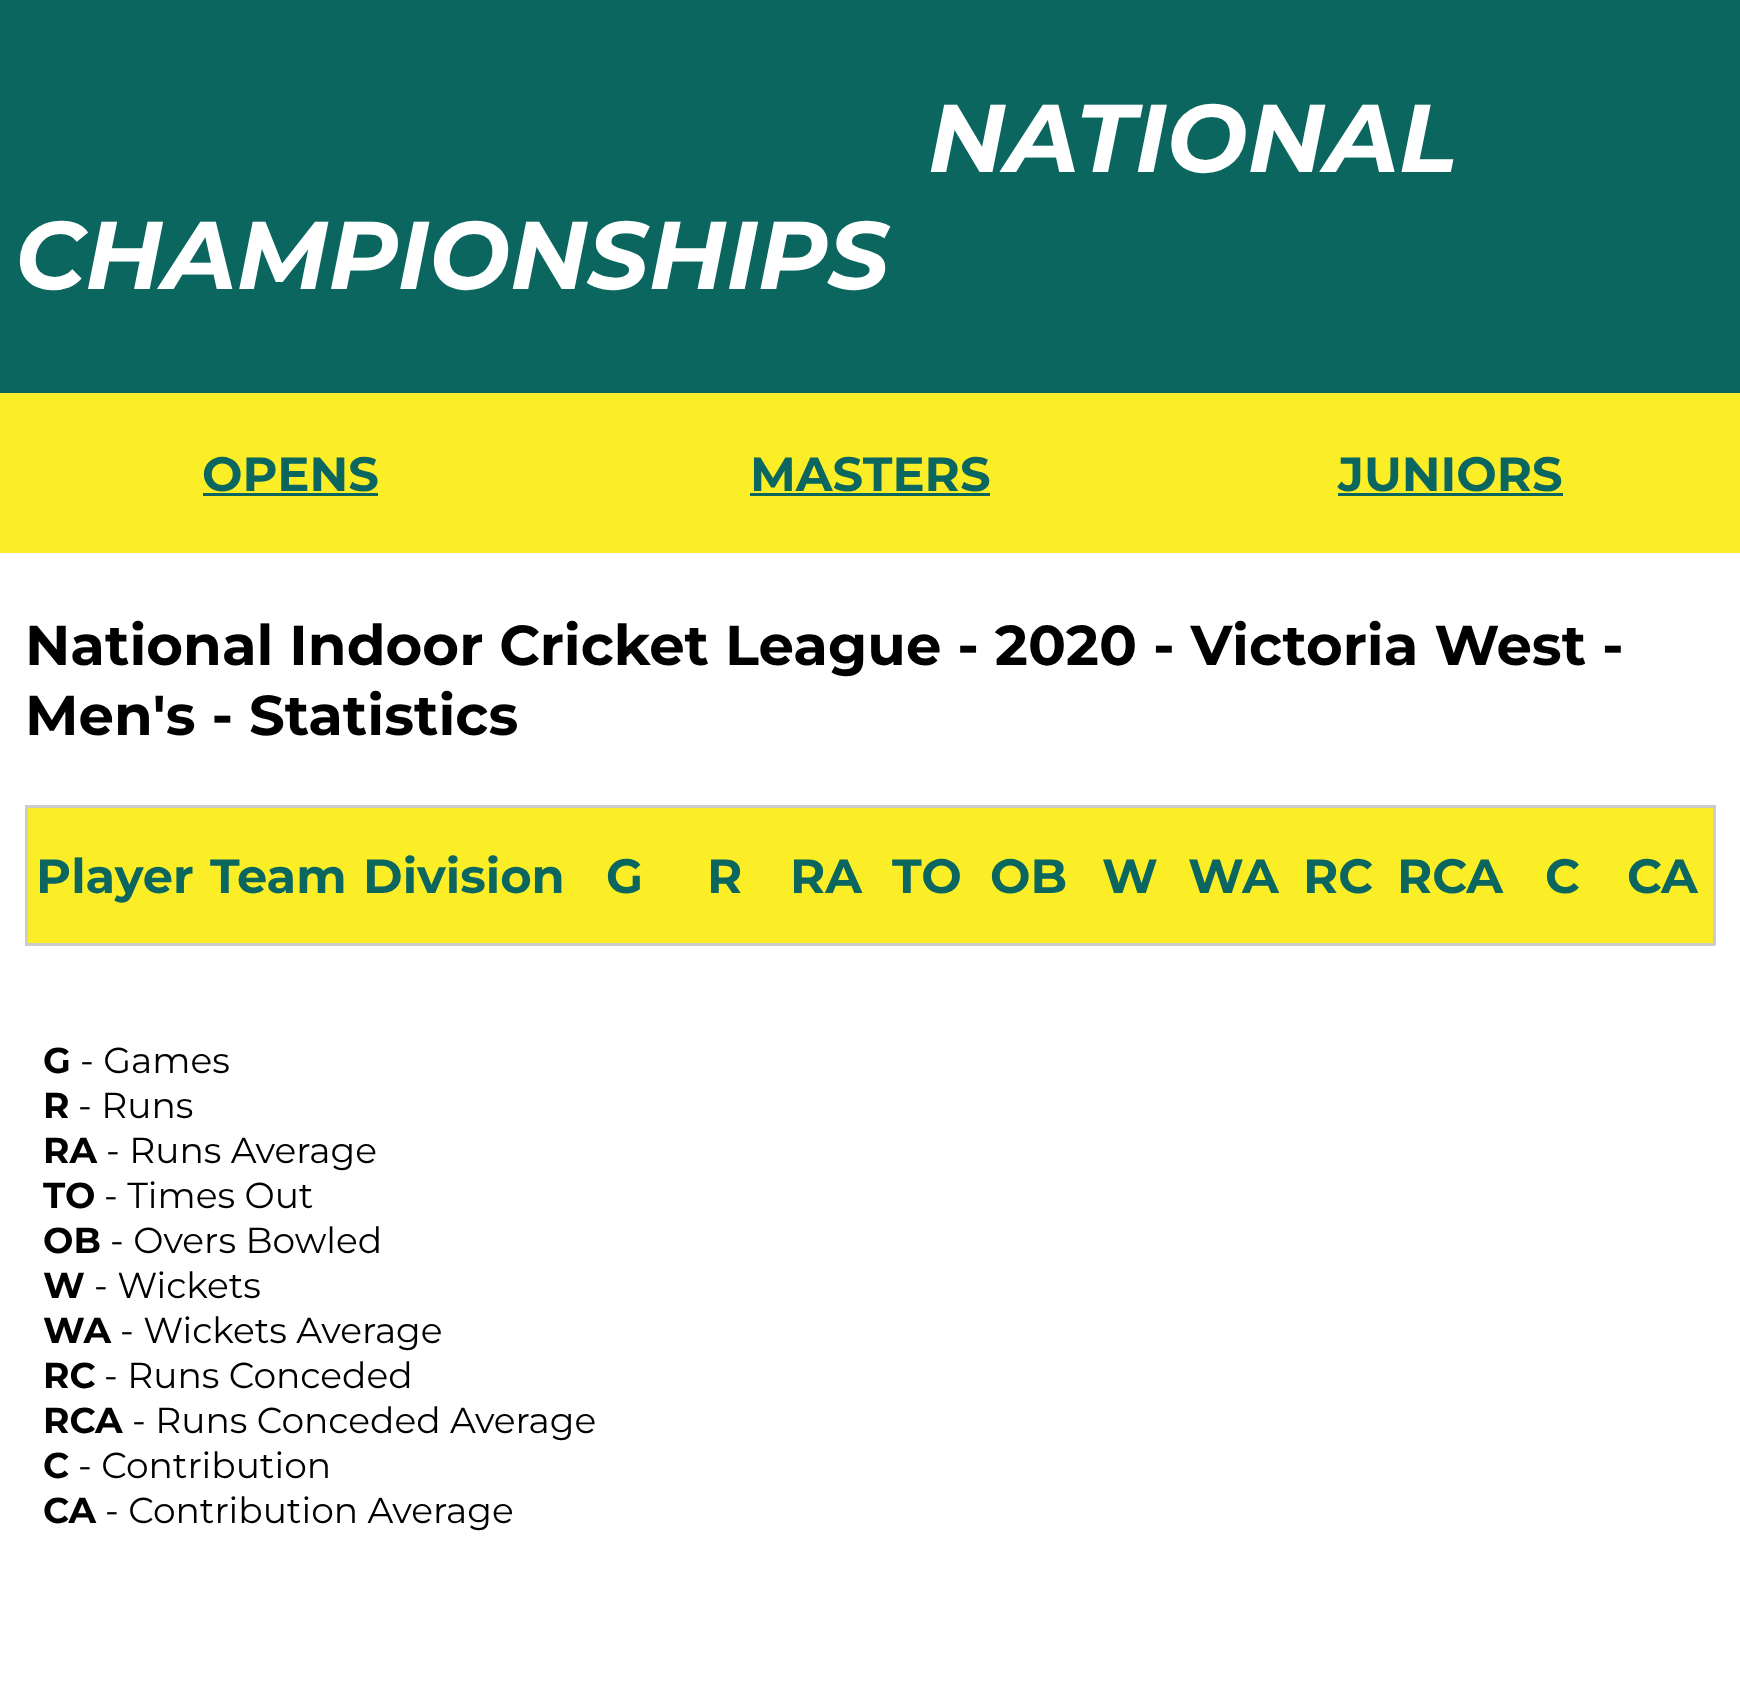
<svg xmlns="http://www.w3.org/2000/svg" width="1740" height="1686">
<style>
.a{font:italic bold 96px Montserrat;fill:#fff}
.b{font:bold 48px Montserrat;fill:#0c6660}
.c{font:bold 56.15px Montserrat;fill:#000}
.d{font:bold 36px Montserrat;fill:#000}
.e{font:36px Montserrat;fill:#000}
</style>
<rect width="100%" height="100%" fill="#fff"/>
<path fill="#0c6660" d="M0 0h1740v393H0z"/>
<path fill="#fbed26" d="M0 393h1740v160H0z"/>
<path fill="#0c6660" d="M203 493h175v3H203z"/>
<path fill="#0c6660" d="M750 493h240v3H750z"/>
<path fill="#0c6660" d="M1338 493h225v3H1338z"/>
<path fill="#ccc" d="M25 805h1690v3H25z"/>
<path fill="#ccc" d="M1713 805h3v140H1713z"/>
<path fill="#ccc" d="M25 943h1690v3H25z"/>
<path fill="#ccc" d="M25 805h3v140H25z"/>
<path fill="#fbed26" d="M28 808h1685v135H28z"/>
<text class="a" x="928" y="172">NATIONAL</text>
<text class="a" x="15" y="289">CHAMPIONSHIPS</text>
<text class="b" x="202" y="491">OPENS</text>
<text class="b" x="750" y="491">MASTERS</text>
<text class="b" x="1338" y="491">JUNIORS</text>
<text class="c" x="25" y="665">National Indoor Cricket League - 2020 - Victoria West -</text>
<text class="c" x="25" y="735">Men's - Statistics</text>
<text class="b" x="36" y="893">Player</text>
<text class="b" x="210" y="893">Team</text>
<text class="b" x="363" y="893">Division</text>
<text class="b" x="606" y="893">G</text>
<text class="b" x="707" y="893">R</text>
<text class="b" x="790" y="893">RA</text>
<text class="b" x="892" y="893">TO</text>
<text class="b" x="990" y="893">OB</text>
<text class="b" x="1102" y="893">W</text>
<text class="b" x="1188" y="893">WA</text>
<text class="b" x="1303" y="893">RC</text>
<text class="b" x="1397" y="893">RCA</text>
<text class="b" x="1545" y="893">C</text>
<text class="b" x="1627" y="893">CA</text>
<text class="d" x="43" y="1073">G</text>
<text class="e" x="80" y="1073">- Games</text>
<text class="d" x="43" y="1118">R</text>
<text class="e" x="78" y="1118">- Runs</text>
<text class="d" x="43" y="1163">RA</text>
<text class="e" x="106" y="1163">- Runs Average</text>
<text class="d" x="43" y="1208">TO</text>
<text class="e" x="104" y="1208">- Times Out</text>
<text class="d" x="43" y="1253">OB</text>
<text class="e" x="110" y="1253">- Overs Bowled</text>
<text class="d" x="43" y="1298">W</text>
<text class="e" x="94" y="1298">- Wickets</text>
<text class="d" x="43" y="1343">WA</text>
<text class="e" x="120" y="1343">- Wickets Average</text>
<text class="d" x="43" y="1388">RC</text>
<text class="e" x="104" y="1388">- Runs Conceded</text>
<text class="d" x="43" y="1433">RCA</text>
<text class="e" x="132" y="1433">- Runs Conceded Average</text>
<text class="d" x="43" y="1478">C</text>
<text class="e" x="78" y="1478">- Contribution</text>
<text class="d" x="43" y="1523">CA</text>
<text class="e" x="105" y="1523">- Contribution Average</text>
</svg>
